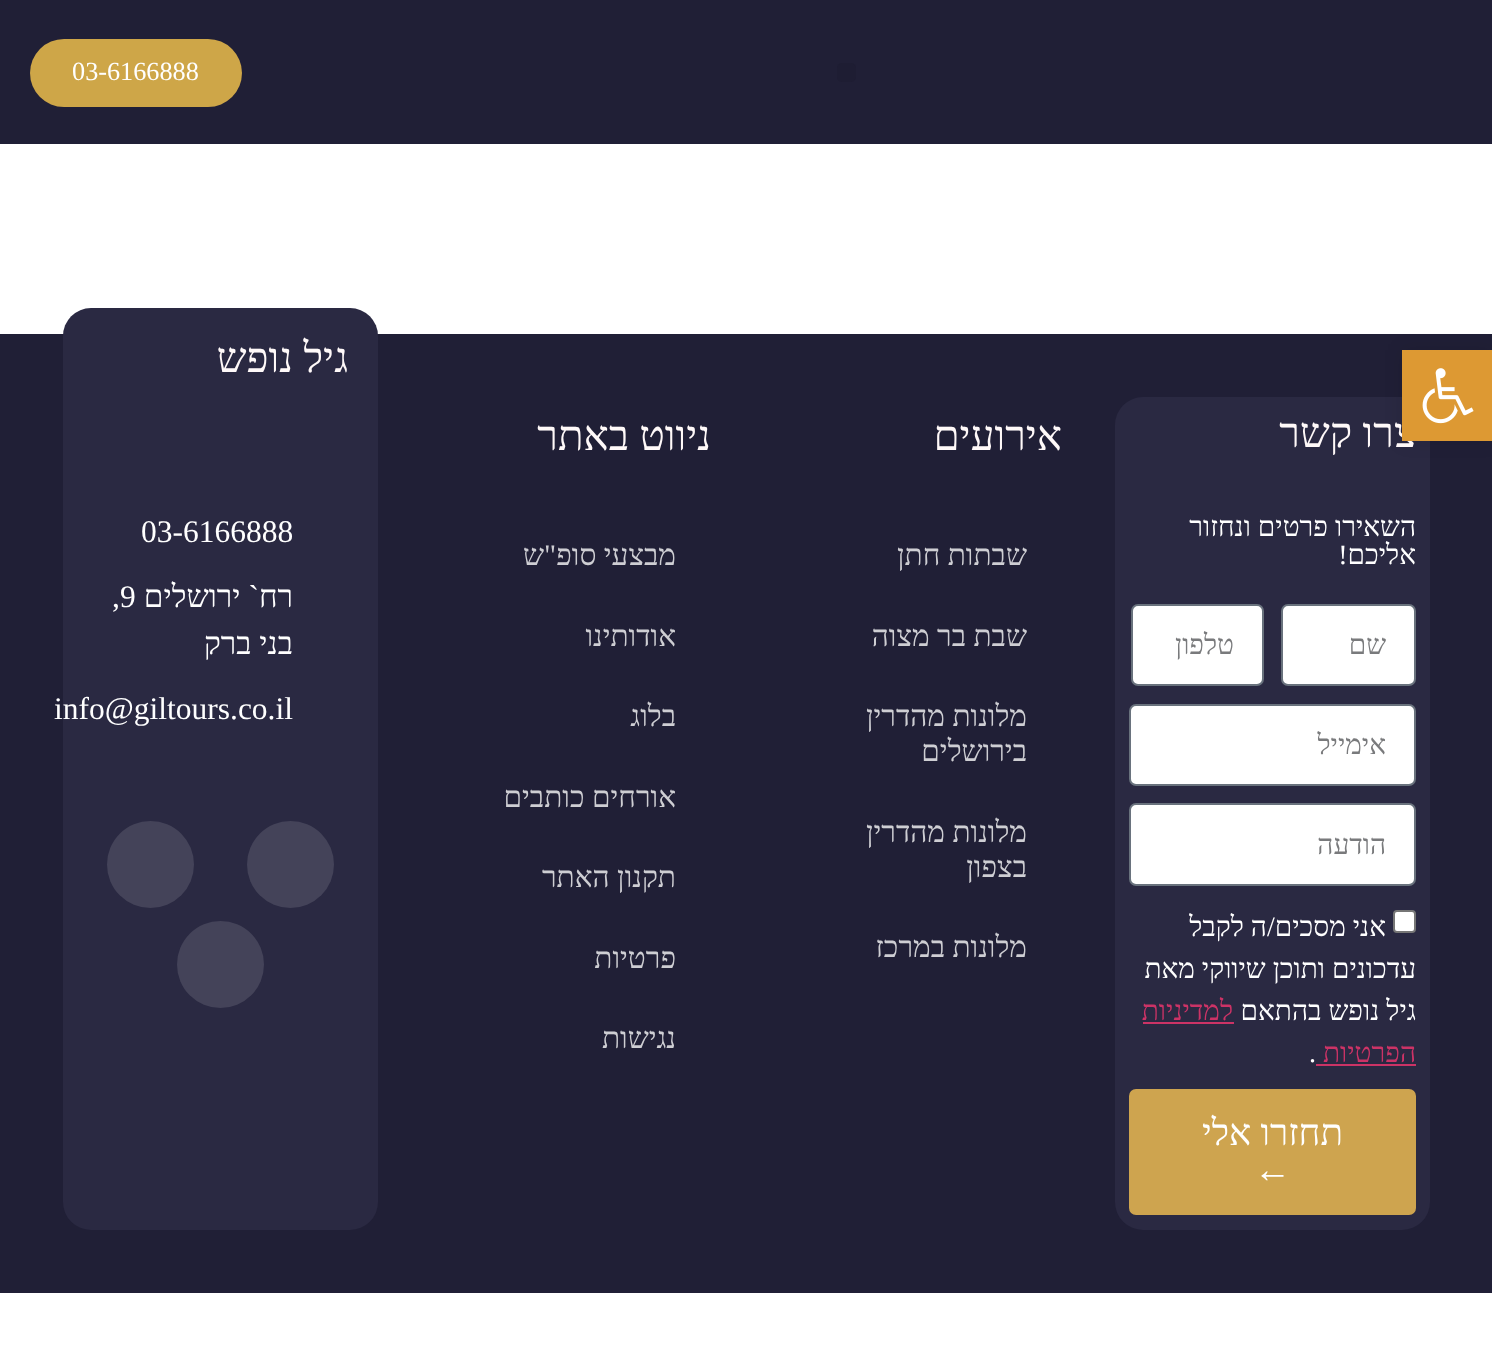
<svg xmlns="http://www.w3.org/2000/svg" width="1492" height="1347">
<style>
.a{font:26.25px Liberation Serif;fill:#fff}
.b{font:42px Liberation Serif;direction:rtl;fill:#fff9f9}
.c{font:28px Liberation Serif;direction:rtl;fill:#fff}
.d{font:28px Liberation Serif;direction:rtl;fill:#797a7c}
.e{font:28px Liberation Serif;direction:rtl;fill:#c36}
.f{font:28px Liberation Serif;fill:#fff}
.g{font:37px Liberation Serif;direction:rtl;fill:#fff}
.h{font:37px Liberation Serif;fill:#fff}
.i{font:29.75px Liberation Serif;direction:rtl;fill:#ceced3}
.j{font:31.5px Liberation Serif;fill:#fff}
.k{font:31.5px Liberation Serif;direction:rtl;fill:#fff}
</style>
<rect width="100%" height="100%" fill="#fff"/>
<path fill="#201f36" d="M0 0h1492v144H0z"/>
<rect fill="#1e1d33" x="837" y="63" width="19" height="19" rx="5"/>
<rect fill="#cea648" x="30" y="39" width="212" height="68" rx="34"/>
<path fill="#201f36" d="M0 334h1492v959H0z"/>
<rect fill="#2a2942" x="1115" y="397" width="315" height="833" rx="28"/>
<path fill="#0000001a" filter="blur(9px)" d="M1402 350h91v91H1402z"/>
<rect fill="#fff" stroke="#69727d" stroke-width="2" x="1282" y="605" width="133" height="80" rx="6"/>
<rect fill="#fff" stroke="#69727d" stroke-width="2" x="1132" y="605" width="131" height="80" rx="6"/>
<rect fill="#fff" stroke="#69727d" stroke-width="2" x="1130" y="705" width="285" height="80" rx="6"/>
<rect fill="#fff" stroke="#69727d" stroke-width="2" x="1130" y="804" width="285" height="81" rx="6"/>
<rect fill="#fff" stroke="#767676" stroke-width="2" x="1394" y="911" width="21" height="21" rx="3"/>
<path fill="#c36" d="M1143 1022h91v2H1143z"/>
<path fill="#c36" d="M1316 1064h100v2H1316z"/>
<rect fill="#cea44f" x="1129" y="1089" width="287" height="126" rx="7"/>
<rect fill="#2a2942" x="63" y="308" width="315" height="922" rx="28"/>
<circle fill="#444359" cx="290.5" cy="864.5" r="43.5"/>
<circle fill="#444359" cx="150.5" cy="864.5" r="43.5"/>
<circle fill="#444359" cx="220.5" cy="964.5" r="43.5"/>
<text class="a" x="72" y="80">03-6166888</text>
<text class="b" x="1416" y="447">צרו קשר</text>
<path fill="#d93" d="M1402 350h90v91H1402z"/>
<image href="1.png" x="1422" y="368" width="52" height="56"/>
<text class="c" x="1416" y="536">השאירו פרטים ונחזור</text>
<text class="c" x="1416" y="564">אליכם!</text>
<text class="d" x="1386" y="654">שם</text>
<text class="d" x="1234" y="654">טלפון</text>
<text class="d" x="1386" y="754">אימייל</text>
<text class="d" x="1386" y="854">הודעה</text>
<text class="c" x="1386" y="936">אני מסכים/ה לקבל</text>
<text class="c" x="1416" y="978">עדכונים ותוכן שיווקי מאת</text>
<text class="c" x="1416" y="1020">גיל נופש בהתאם</text>
<text class="e" x="1233" y="1020">למדיניות</text>
<text class="e" x="1416" y="1062">הפרטיות</text>
<text class="f" x="1309" y="1062">.</text>
<text class="g" x="1343" y="1145">תחזרו אלי</text>
<text class="h" x="1254" y="1182">←</text>
<text class="b" x="1062" y="450">אירועים</text>
<text class="i" x="1027" y="565">שבתות חתן</text>
<text class="i" x="1027" y="646">שבת בר מצוה</text>
<text class="i" x="1027" y="726">מלונות מהדרין</text>
<text class="i" x="1027" y="761">בירושלים</text>
<text class="i" x="1027" y="842">מלונות מהדרין</text>
<text class="i" x="1027" y="877">בצפון</text>
<text class="i" x="1027" y="957">מלונות במרכז</text>
<text class="b" x="711" y="450">ניווט באתר</text>
<text class="i" x="676" y="565">מבצעי סופ"ש</text>
<text class="i" x="676" y="646">אודותינו</text>
<text class="i" x="676" y="726">בלוג</text>
<text class="i" x="676" y="807">אורחים כותבים</text>
<text class="i" x="676" y="887">תקנון האתר</text>
<text class="i" x="676" y="968">פרטיות</text>
<text class="i" x="676" y="1048">נגישות</text>
<text class="b" x="348" y="372">גיל נופש</text>
<text class="j" x="141" y="542">03-6166888</text>
<text class="k" x="293" y="607">רח` ירושלים</text>
<text class="j" x="112" y="607">,9</text>
<text class="k" x="293" y="654">בני ברק</text>
<text class="j" x="54" y="719">info@giltours.co.il</text>
</svg>
